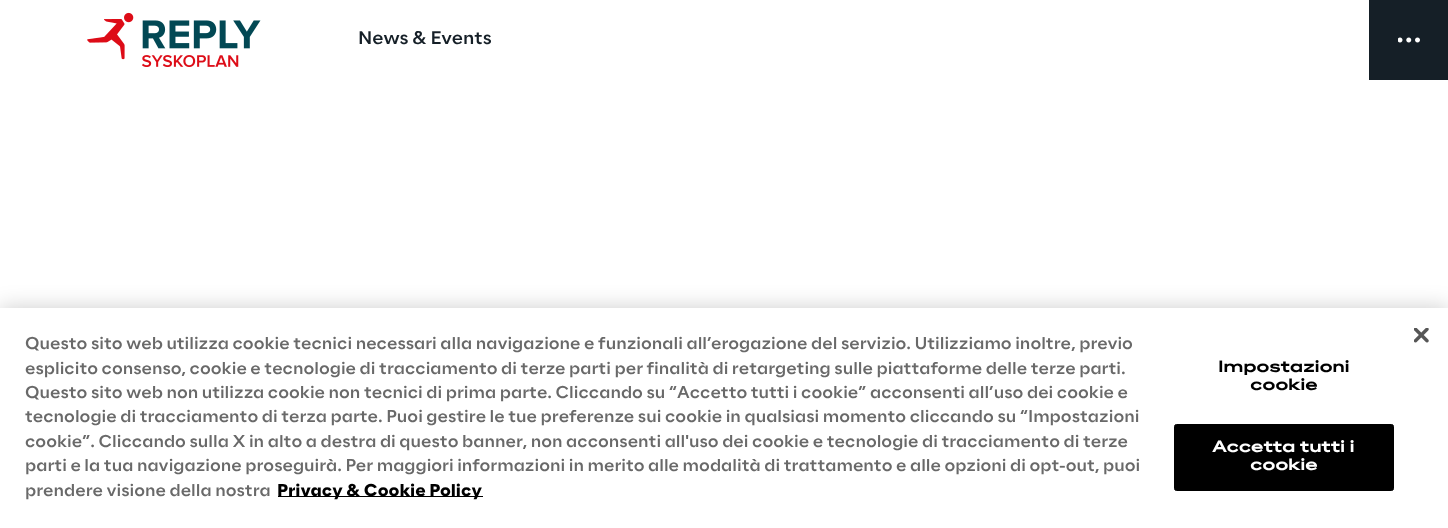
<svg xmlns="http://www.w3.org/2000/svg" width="1448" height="528">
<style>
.a{font:500 17.5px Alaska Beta;fill:#151f27}
.b{font:500 16.25px Alaska Beta;fill:#696969}
.c{font:bold 16.25px Alaska Beta;fill:#000}
.d{font:bold 15px 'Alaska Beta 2';letter-spacing:0.1px;fill:#000}
.e{font:bold 15px 'Alaska Beta 2';letter-spacing:0.1px;fill:#fff}
</style>
<rect width="100%" height="100%" fill="#fff"/>
<image href="1.png" x="87" y="12" width="174" height="55"/>
<path fill="#151f27" d="M1369 0h79v80H1369z"/>
<image href="2.png" x="1398" y="37" width="22" height="6"/>
<path fill="#00000033" filter="blur(11px)" d="M0 308h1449v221H0z"/>
<path fill="#fff" d="M0 308h1448v220H0z"/>
<path fill="#000" d="M278 496h205v1H278z"/>
<rect fill="#000" stroke="#000" x="1174.5" y="424.5" width="219" height="66" rx="2"/>
<image href="3.png" x="1414" y="328" width="15" height="15"/>
<text class="a" x="358" y="44">News &amp; Events</text>
<text class="b" x="25" y="349">Questo sito web utilizza cookie tecnici necessari alla navigazione e funzionali all’erogazione del servizio. Utilizziamo inoltre, previo</text>
<text class="b" x="25" y="374">esplicito consenso, cookie e tecnologie di tracciamento di terze parti per finalità di retargeting sulle piattaforme delle terze parti.</text>
<text class="b" x="25" y="398">Questo sito web non utilizza cookie non tecnici di prima parte. Cliccando su “Accetto tutti i cookie” acconsenti all’uso dei cookie e</text>
<text class="b" x="25" y="422">tecnologie di tracciamento di terza parte. Puoi gestire le tue preferenze sui cookie in qualsiasi momento cliccando su “Impostazioni</text>
<text class="b" x="25" y="447">cookie”. Cliccando sulla X in alto a destra di questo banner, non acconsenti all'uso dei cookie e tecnologie di tracciamento di terze</text>
<text class="b" x="25" y="471">parti e la tua navigazione proseguirà. Per maggiori informazioni in merito alle modalità di trattamento e alle opzioni di opt-out, puoi</text>
<text class="b" x="25" y="496">prendere visione della nostra</text>
<text class="c" x="277" y="496">Privacy &amp; Cookie Policy</text>
<text class="d" x="1218" y="372">Impostazioni</text>
<text class="d" x="1250" y="390">cookie</text>
<text class="e" x="1212" y="452">Accetta tutti i</text>
<text class="e" x="1250" y="470">cookie</text>
</svg>
